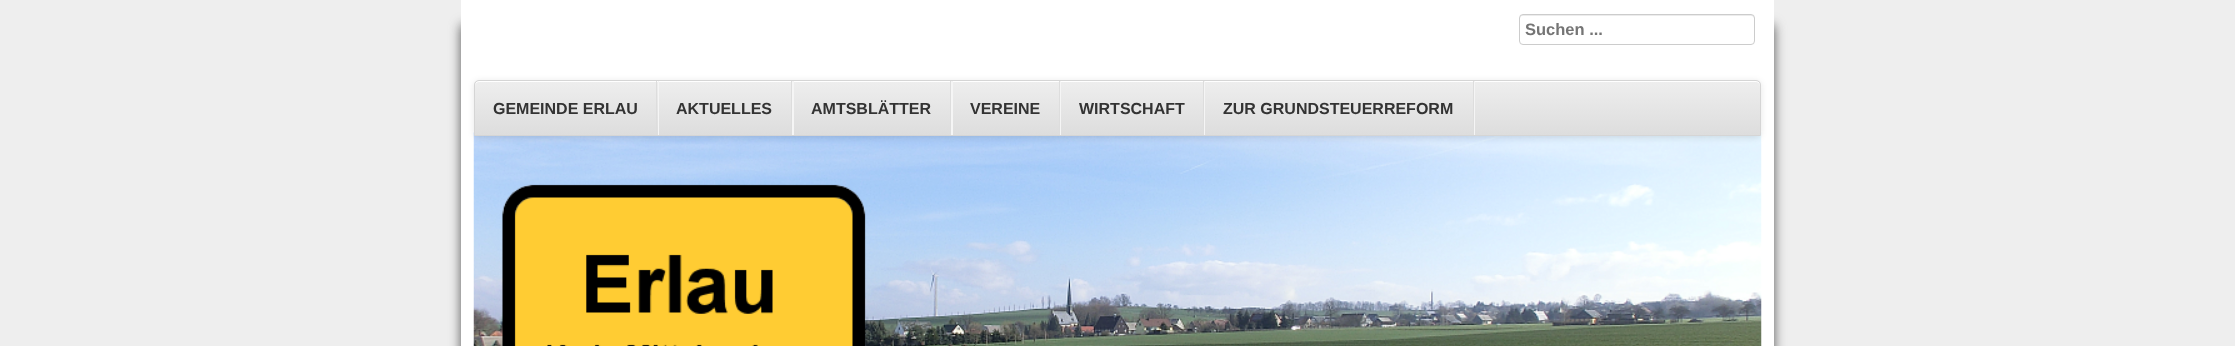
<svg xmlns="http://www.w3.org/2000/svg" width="2235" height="346">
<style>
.a{font:bold 16.5px Liberation Sans;fill:#757575}
.b{font:bold 16px Liberation Sans;fill:#333}
</style>
<defs>
<clipPath id="clip1"><path d="M479 80h1277c3 0 5 2 5 5v51h-1287v-51c0-3 2-5 5-5z"/></clipPath>
<linearGradient id="g1" gradientUnits="userSpaceOnUse" x1="1118" y1="81" x2="1118" y2="135"><stop offset="0" stop-color="#eee"/><stop offset="1" stop-color="#ddd"/></linearGradient>
</defs>
<rect width="100%" height="100%" fill="#eee"/>
<path fill="#555" filter="blur(6px)" d="M461 25h1313v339H461z"/>
<path fill="#fff" d="M461 0h1313v346H461z"/>
<path fill="#ececec" d="M1522 16h229c2 0 3 1 3 3c0-2 0-4-2-4h-230c-2 0-2 2-2 4c0-2 1-3 2-3z"/>
<rect fill="none" stroke="#ccc" x="1519.5" y="14.5" width="235" height="30" rx="3.5"/>
<image href="1.png" x="473" y="132" width="1289" height="214"/>
<rect fill="#0000001a" filter="blur(3px)" x="474" y="81" width="1287" height="57" rx="5"/>
<g clip-path="url(#clip1)">
<path fill="url(#g1)" d="M474 81h1287v54H474z"/>
</g>
<path fill="#fff" d="M479 82h1277c2 0 4 2 4 4v-1c0-2-2-4-4-4h-1277c-2 0-4 2-4 4v1c0-2 2-4 4-4z"/>
<path fill="none" stroke="#d5d5d5" d="M479 80.5h1277c2.5 0 4.5 2 4.5 4.5v50.5h-1286v-50.5c0-2.5 2-4.5 4.5-4.5z"/>
<path fill="#f5f5f5" d="M480 81h-2h180v54h1v-54z"/>
<path fill="#ddd" d="M656 81h1v54H656z"/>
<path fill="#f5f5f5" d="M659 81h133v54h2v-54z"/>
<path fill="#ddd" d="M791 81h1v54H791z"/>
<path fill="#f5f5f5" d="M794 81h157v54h2v-54z"/>
<path fill="#ddd" d="M950 81h1v54H950z"/>
<path fill="#f5f5f5" d="M953 81h107v54h1v-54z"/>
<path fill="#ddd" d="M1059 81h1v54H1059z"/>
<path fill="#f5f5f5" d="M1061 81h143v54h1v-54z"/>
<path fill="#ddd" d="M1203 81h1v54H1203z"/>
<path fill="#f5f5f5" d="M1205 81h269v54h1v-54z"/>
<path fill="#ddd" d="M1473 81h1v54H1473z"/>
<image href="2.png" x="502" y="184" width="364" height="162"/>
<text class="a" x="1525" y="35">Suchen ...</text>
<text class="b" x="493" y="114">GEMEINDE ERLAU</text>
<text class="b" x="676" y="114">AKTUELLES</text>
<text class="b" x="811" y="114">AMTSBLÄTTER</text>
<text class="b" x="970" y="114">VEREINE</text>
<text class="b" x="1079" y="114">WIRTSCHAFT</text>
<text class="b" x="1223" y="114">ZUR GRUNDSTEUERREFORM</text>
</svg>
